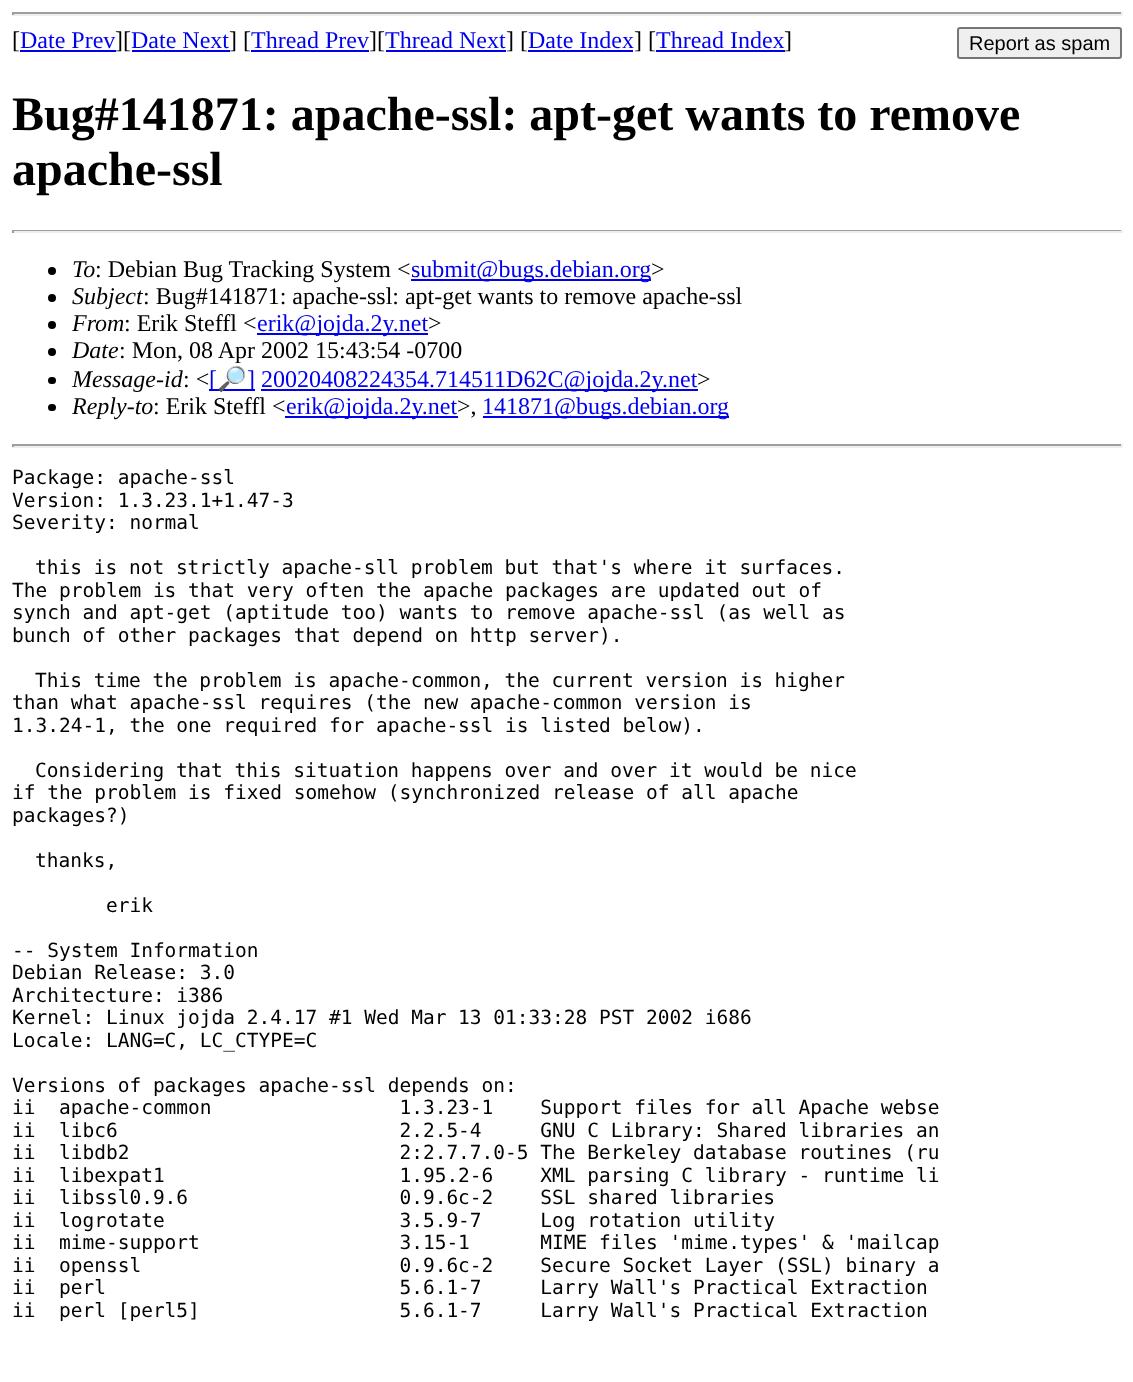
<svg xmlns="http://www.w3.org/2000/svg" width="1133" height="1382">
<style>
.a{font:24px Liberation Serif;fill:#000}
.b{font:24px Liberation Serif;fill:#00e}
.c{font:20px Liberation Sans;fill:#000}
.d{font:bold 48px Liberation Serif;fill:#000}
.e{font:italic 24px Liberation Serif;fill:#000}
.f{font:24px Noto Color Emoji;fill:#00e}
.g{font:19.5px DejaVu Sans Mono;fill:#000}
</style>
<rect width="100%" height="100%" fill="#fff"/>
<path fill="#9f9f9f" d="M12 12h1110v2H12z"/>
<path fill="#eee" d="M1121 12h2v3H1121z"/>
<path fill="#eee" d="M12 14h1110v2H12z"/>
<path fill="#9f9f9f" d="M12 12h2v3H12z"/>
<path fill="#00e" d="M20 50h96v2H20z"/>
<path fill="#00e" d="M132 50h98v2H132z"/>
<path fill="#00e" d="M251 50h118v2H251z"/>
<path fill="#00e" d="M386 50h120v2H386z"/>
<path fill="#00e" d="M528 50h105v2H528z"/>
<path fill="#00e" d="M656 50h129v2H656z"/>
<rect fill="#efefef" stroke="#767676" stroke-width="2" x="958" y="28" width="163" height="30" rx="2"/>
<path fill="#9f9f9f" d="M12 230h1110v1H12z"/>
<path fill="#eee" d="M1121 230h2v3H1121z"/>
<path fill="#eee" d="M12 231h1110v2H12z"/>
<path fill="#9f9f9f" d="M12 230h2v3H12z"/>
<circle fill="#000" cx="52" cy="271" r="4"/>
<path fill="#00e" d="M411 279h240v2H411z"/>
<circle fill="#000" cx="52" cy="298" r="4"/>
<circle fill="#000" cx="52" cy="325" r="4"/>
<path fill="#00e" d="M257 333h171v2H257z"/>
<circle fill="#000" cx="52" cy="352" r="4"/>
<rect fill="#000" x="48" y="377" width="8" height="7" rx="3.5"/>
<path fill="#00e" d="M209 389h46v2H209z"/>
<path fill="#00e" d="M261 389h437v2H261z"/>
<rect fill="#000" x="48" y="404" width="8" height="7" rx="3.5"/>
<path fill="#00e" d="M285 416h173v2H285z"/>
<path fill="#00e" d="M483 416h246v2H483z"/>
<path fill="#9f9f9f" d="M12 444h1110v2H12z"/>
<path fill="#eee" d="M1121 444h2v3H1121z"/>
<path fill="#eee" d="M12 446h1110v2H12z"/>
<path fill="#9f9f9f" d="M12 444h2v3H12z"/>
<text class="a" x="12" y="48">[</text>
<text class="b" x="20" y="48">Date Prev</text>
<text class="a" x="115" y="48">][</text>
<text class="b" x="131" y="48">Date Next</text>
<text class="a" x="229" y="48">] [</text>
<text class="b" x="251" y="48">Thread Prev</text>
<text class="a" x="369" y="48">][</text>
<text class="b" x="385" y="48">Thread Next</text>
<text class="a" x="506" y="48">] [</text>
<text class="b" x="528" y="48">Date Index</text>
<text class="a" x="634" y="48">] [</text>
<text class="b" x="656" y="48">Thread Index</text>
<text class="a" x="784" y="48">]</text>
<text class="c" x="969" y="50">Report as spam</text>
<text class="d" x="12" y="130">Bug#141871: apache-ssl: apt-get wants to remove</text>
<text class="d" x="12" y="185">apache-ssl</text>
<text class="e" x="72" y="277">To</text>
<text class="a" x="95" y="277">: Debian Bug Tracking System &lt;</text>
<text class="b" x="411" y="277">submit@bugs.debian.org</text>
<text class="a" x="651" y="277">&gt;</text>
<text class="e" x="72" y="304">Subject</text>
<text class="a" x="143" y="304">: Bug#141871: apache-ssl: apt-get wants to remove apache-ssl</text>
<text class="e" x="72" y="331">From</text>
<text class="a" x="124" y="331">: Erik Steffl &lt;</text>
<text class="b" x="257" y="331">erik@jojda.2y.net</text>
<text class="a" x="428" y="331">&gt;</text>
<text class="e" x="72" y="358">Date</text>
<text class="a" x="119" y="358">: Mon, 08 Apr 2002 15:43:54 -0700</text>
<text class="e" x="72" y="387">Message-id</text>
<text class="a" x="183" y="387">: &lt;</text>
<text class="b" x="209" y="387">[</text>
<text class="f" x="217" y="387">🔎</text>
<text class="b" x="247" y="387">]</text>
<text class="b" x="261" y="387">20020408224354.714511D62C@jojda.2y.net</text>
<text class="a" x="697" y="387">&gt;</text>
<text class="e" x="72" y="414">Reply-to</text>
<text class="a" x="153" y="414">: Erik Steffl &lt;</text>
<text class="b" x="286" y="414">erik@jojda.2y.net</text>
<text class="a" x="457" y="414">&gt;,</text>
<text class="b" x="482" y="414">141871@bugs.debian.org</text>
<text class="g" x="12" y="484">Package: apache-ssl</text>
<text class="g" x="12" y="507">Version: 1.3.23.1+1.47-3</text>
<text class="g" x="12" y="529">Severity: normal</text>
<text class="g" x="35" y="574">this is not strictly apache-sll problem but that's where it surfaces.</text>
<text class="g" x="12" y="597">The problem is that very often the apache packages are updated out of</text>
<text class="g" x="12" y="619">synch and apt-get (aptitude too) wants to remove apache-ssl (as well as</text>
<text class="g" x="12" y="642">bunch of other packages that depend on http server).</text>
<text class="g" x="35" y="687">This time the problem is apache-common, the current version is higher</text>
<text class="g" x="12" y="709">than what apache-ssl requires (the new apache-common version is</text>
<text class="g" x="12" y="732">1.3.24-1, the one required for apache-ssl is listed below).</text>
<text class="g" x="35" y="777">Considering that this situation happens over and over it would be nice</text>
<text class="g" x="12" y="799">if the problem is fixed somehow (synchronized release of all apache</text>
<text class="g" x="12" y="822">packages?)</text>
<text class="g" x="35" y="867">thanks,</text>
<text class="g" x="106" y="912">erik</text>
<text class="g" x="12" y="957">-- System Information</text>
<text class="g" x="12" y="979">Debian Release: 3.0</text>
<text class="g" x="12" y="1002">Architecture: i386</text>
<text class="g" x="12" y="1024">Kernel: Linux jojda 2.4.17 #1 Wed Mar 13 01:33:28 PST 2002 i686</text>
<text class="g" x="12" y="1047">Locale: LANG=C, LC_CTYPE=C</text>
<text class="g" x="12" y="1092">Versions of packages apache-ssl depends on:</text>
<text class="g" xml:space="preserve" x="12" y="1114">ii  apache-common                1.3.23-1    Support files for all Apache webse</text>
<text class="g" xml:space="preserve" x="12" y="1137">ii  libc6                        2.2.5-4     GNU C Library: Shared libraries an</text>
<text class="g" xml:space="preserve" x="12" y="1159">ii  libdb2                       2:2.7.7.0-5 The Berkeley database routines (ru</text>
<text class="g" xml:space="preserve" x="12" y="1182">ii  libexpat1                    1.95.2-6    XML parsing C library - runtime li</text>
<text class="g" xml:space="preserve" x="12" y="1204">ii  libssl0.9.6                  0.9.6c-2    SSL shared libraries</text>
<text class="g" xml:space="preserve" x="12" y="1227">ii  logrotate                    3.5.9-7     Log rotation utility</text>
<text class="g" xml:space="preserve" x="12" y="1249">ii  mime-support                 3.15-1      MIME files 'mime.types' &amp; 'mailcap</text>
<text class="g" xml:space="preserve" x="12" y="1272">ii  openssl                      0.9.6c-2    Secure Socket Layer (SSL) binary a</text>
<text class="g" xml:space="preserve" x="12" y="1294">ii  perl                         5.6.1-7     Larry Wall's Practical Extraction</text>
<text class="g" xml:space="preserve" x="12" y="1317">ii  perl [perl5]                 5.6.1-7     Larry Wall's Practical Extraction</text>
</svg>
